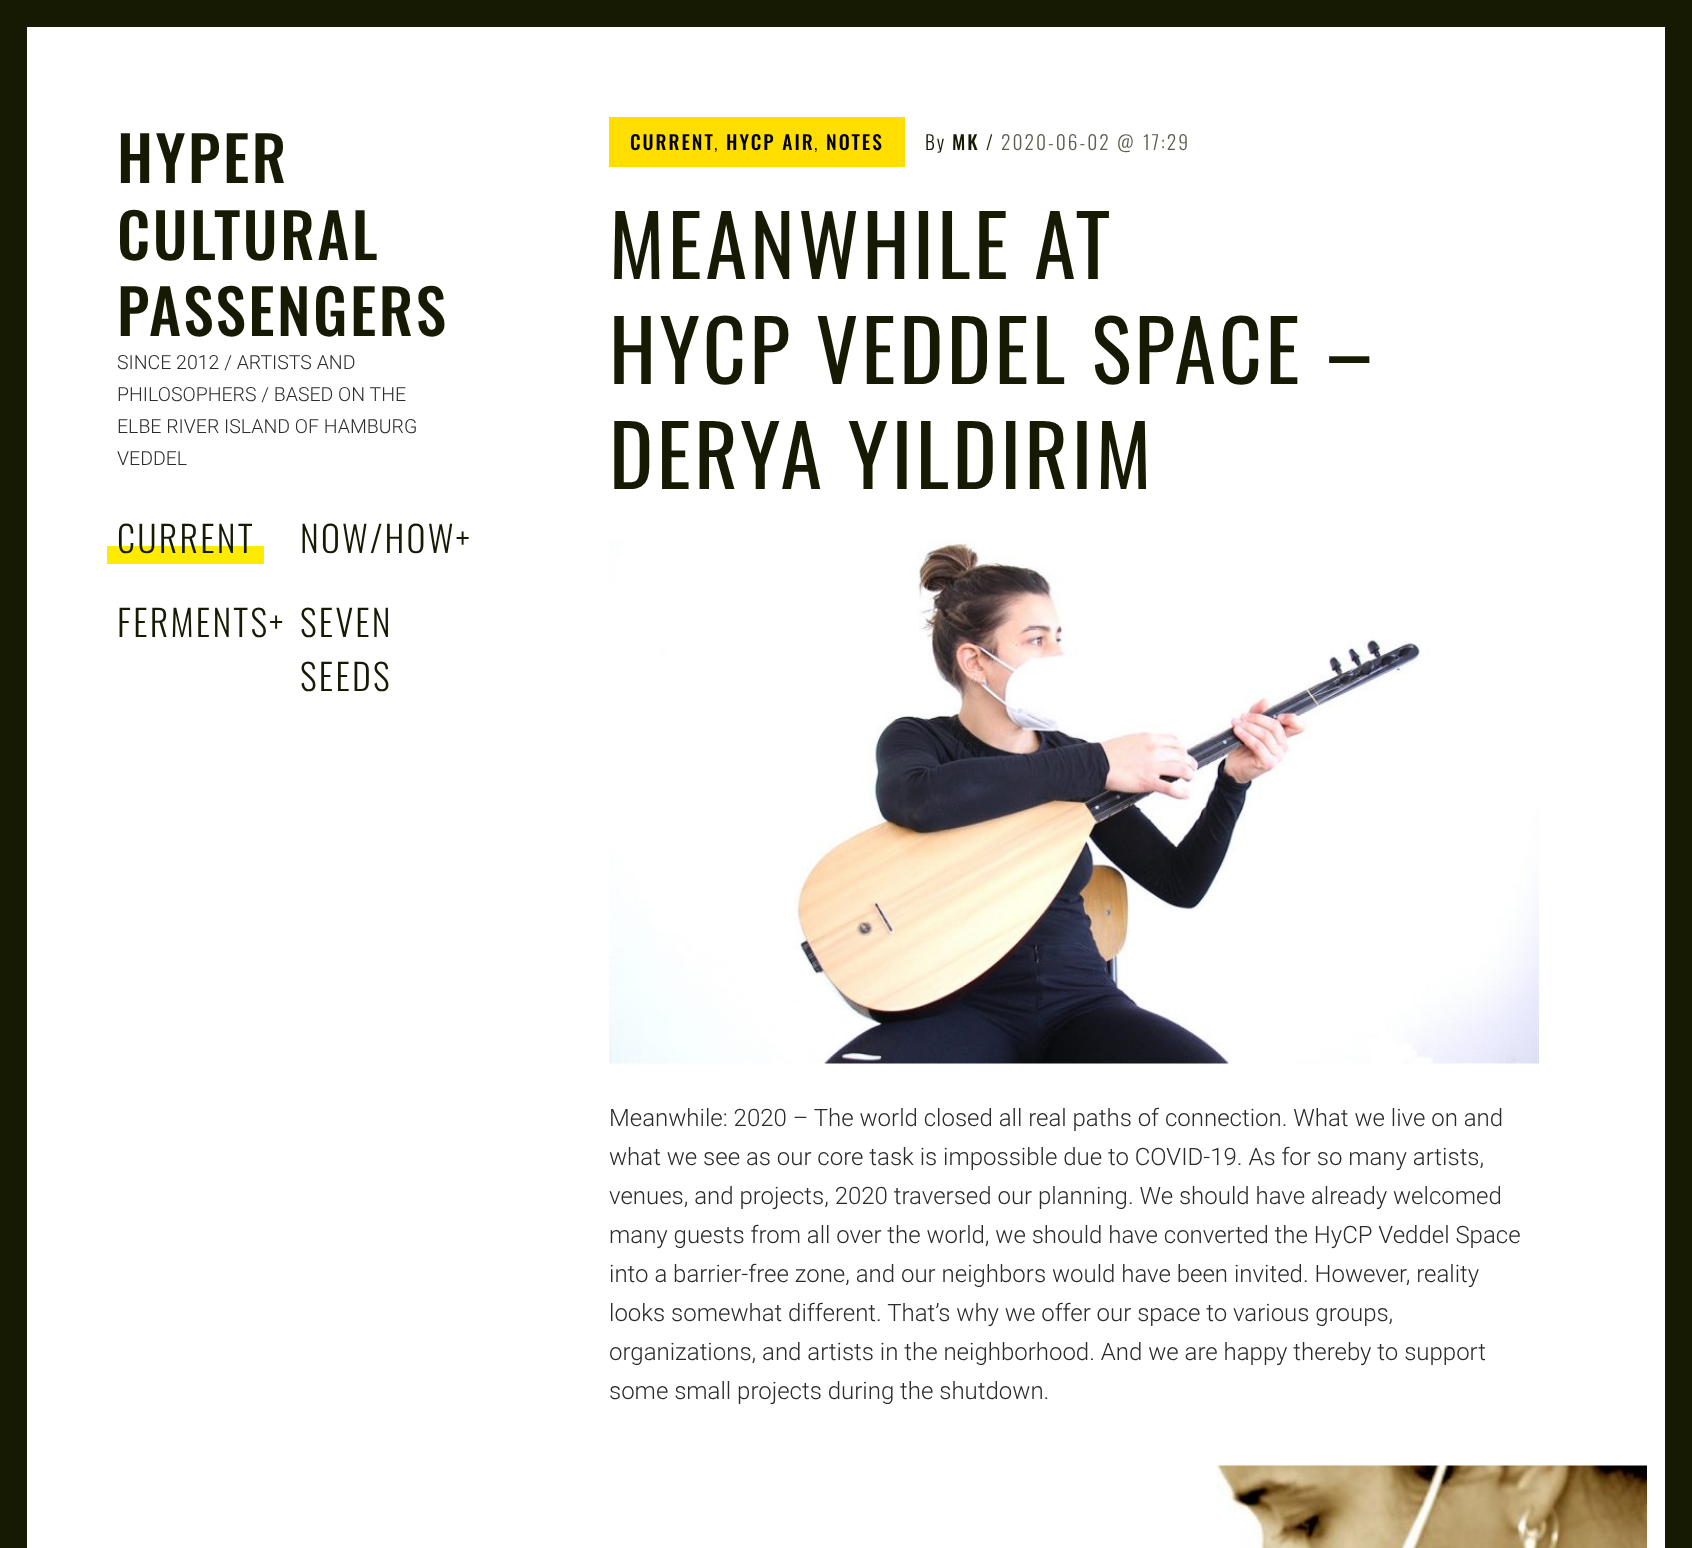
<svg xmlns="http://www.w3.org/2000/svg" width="1692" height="1548">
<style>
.a{font:500 61.5px Oswald;letter-spacing:2.5px;fill:#161a03}
.b{font:300 19.5px Roboto;fill:#2a2c29}
.c{font:300 36px Oswald;letter-spacing:2.25px;fill:#161a03}
.d{font:500 19.5px Oswald;letter-spacing:2px;fill:#000}
.e{font:300 19.5px Oswald;letter-spacing:2px;fill:#000}
.f{font:300 19.5px Oswald;letter-spacing:2px;fill:#161a03}
.g{font:500 19.5px Oswald;letter-spacing:2px;fill:#161a03}
.h{font:300 19.5px Oswald;letter-spacing:2px;fill:#5c5f4f}
.i{font:84px Oswald;letter-spacing:3.4px;fill:#161a03}
.j{font:300 24px Roboto;fill:#2a2c29}
</style>
<rect width="100%" height="100%" fill="#fff"/>
<path fill="#161a03" d="M27 0h1638v27H27z"/>
<path fill="#161a03" d="M1665 0h27v1548H1665z"/>
<path fill="#161a03" d="M0 0h27v1548H0z"/>
<path fill="#ffeb00" d="M107 546h157v18H107z"/>
<path fill="#ffde00" d="M609 117h296v50H609z"/>
<image href="1.png" x="609" y="540" width="930" height="524"/>
<image href="2.png" x="1216" y="1465" width="431" height="83"/>
<text class="a" x="117" y="183">HYPER</text>
<text class="a" x="117" y="260">CULTURAL</text>
<text class="a" x="117" y="336">PASSENGERS</text>
<text class="b" x="117" y="369">SINCE 2012 / ARTISTS AND</text>
<text class="b" x="117" y="401">PHILOSOPHERS / BASED ON THE</text>
<text class="b" x="117" y="433">ELBE RIVER ISLAND OF HAMBURG</text>
<text class="b" x="117" y="465">VEDDEL</text>
<text class="c" x="117" y="553">CURRENT</text>
<text class="c" x="300" y="553">NOW/HOW+</text>
<text class="c" x="117" y="637">FERMENTS+</text>
<text class="c" x="300" y="637">SEVEN</text>
<text class="c" x="300" y="691">SEEDS</text>
<text class="d" x="630" y="150">CURRENT</text>
<text class="e" x="714" y="150">,</text>
<text class="d" x="726" y="150">HYCP AIR</text>
<text class="e" x="814" y="150">,</text>
<text class="d" x="826" y="150">NOTES</text>
<text class="f" x="925" y="150">By</text>
<text class="g" x="952" y="150">MK</text>
<text class="f" x="986" y="150">/</text>
<text class="h" x="1001" y="150">2020-06-02</text>
<text class="h" x="1117" y="150">@</text>
<text class="h" x="1143" y="150">17:29</text>
<text class="i" x="609" y="279">MEANWHILE AT</text>
<text class="i" x="609" y="384">HYCP VEDDEL SPACE –</text>
<text class="i" x="609" y="489">DERYA YILDIRIM</text>
<text class="j" x="609" y="1126">Meanwhile: 2020 – The world closed all real paths of connection. What we live on and</text>
<text class="j" x="609" y="1165">what we see as our core task is impossible due to COVID-19. As for so many artists,</text>
<text class="j" x="609" y="1204">venues, and projects, 2020 traversed our planning. We should have already welcomed</text>
<text class="j" x="609" y="1243">many guests from all over the world, we should have converted the HyCP Veddel Space</text>
<text class="j" x="609" y="1282">into a barrier-free zone, and our neighbors would have been invited. However, reality</text>
<text class="j" x="609" y="1321">looks somewhat different. That’s why we offer our space to various groups,</text>
<text class="j" x="609" y="1360">organizations, and artists in the neighborhood. And we are happy thereby to support</text>
<text class="j" x="609" y="1399">some small projects during the shutdown.</text>
</svg>
